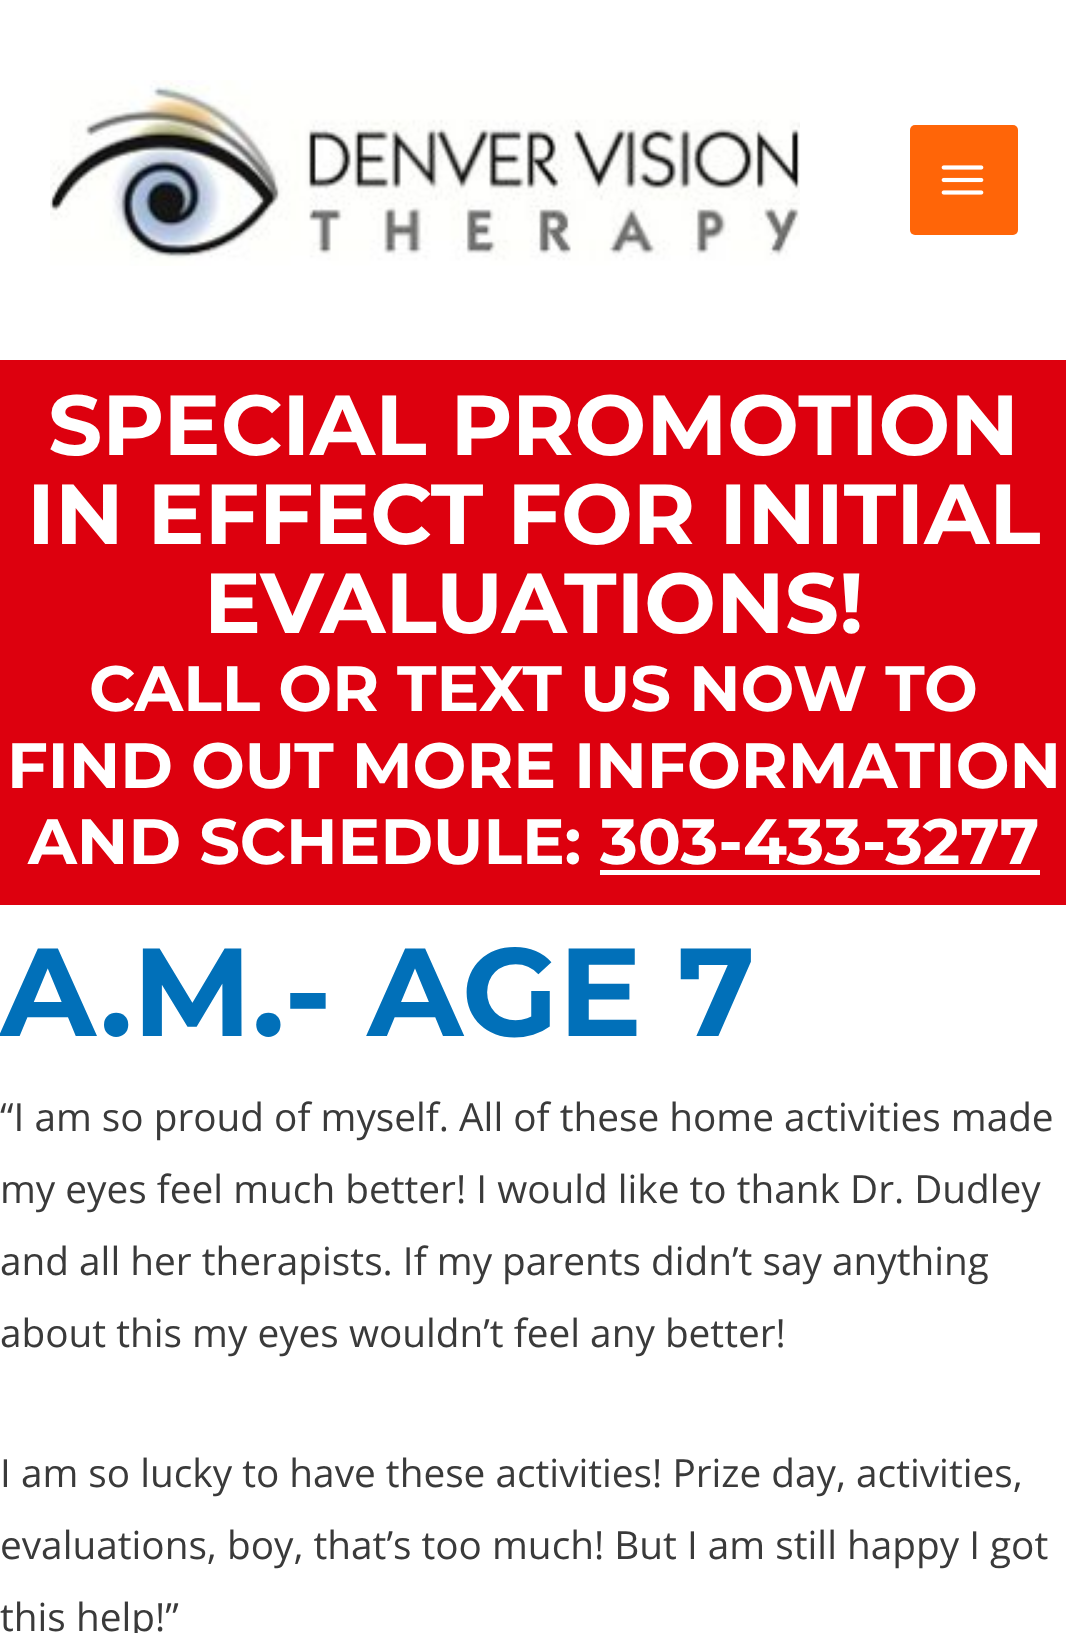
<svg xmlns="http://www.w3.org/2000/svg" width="1066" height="1633">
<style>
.a{font:bold 85px Montserrat;fill:#fff}
.b{font:bold 63.8px Montserrat;fill:#fff}
.c{font:bold 125px Montserrat;fill:#0170b9}
.d{font:38.75px Open Sans;fill:#3a3a3a}
</style>
<rect width="100%" height="100%" fill="#fff"/>
<image href="1.png" x="50" y="80" width="750" height="186"/>
<rect fill="#ff6508" x="910" y="125" width="108" height="110" rx="5"/>
<image href="2.png" x="941" y="165" width="43" height="30"/>
<path fill="#dd000e" d="M0 360h1066v545H0z"/>
<path fill="#fff" d="M600 870h440v5H600z"/>
<text class="a" x="48" y="455">SPECIAL PROMOTION</text>
<text class="a" x="27" y="544">IN EFFECT FOR INITIAL</text>
<text class="a" x="204" y="633">EVALUATIONS!</text>
<text class="b" x="89" y="711">CALL OR TEXT US NOW TO</text>
<text class="b" x="7" y="788">FIND OUT MORE INFORMATION</text>
<text class="b" x="28" y="864">AND SCHEDULE:</text>
<text class="b" x="600" y="864">303-433-3277</text>
<text class="c" x="0" y="1036">A.M.- AGE 7</text>
<text class="d" x="0" y="1131">“I am so proud of myself. All of these home activities made</text>
<text class="d" x="0" y="1203">my eyes feel much better! I would like to thank Dr. Dudley</text>
<text class="d" x="0" y="1275">and all her therapists. If my parents didn’t say anything</text>
<text class="d" x="0" y="1347">about this my eyes wouldn’t feel any better!</text>
<text class="d" x="0" y="1487">I am so lucky to have these activities! Prize day, activities,</text>
<text class="d" x="0" y="1559">evaluations, boy, that’s too much! But I am still happy I got</text>
<text class="d" x="0" y="1631">this help!”</text>
</svg>
